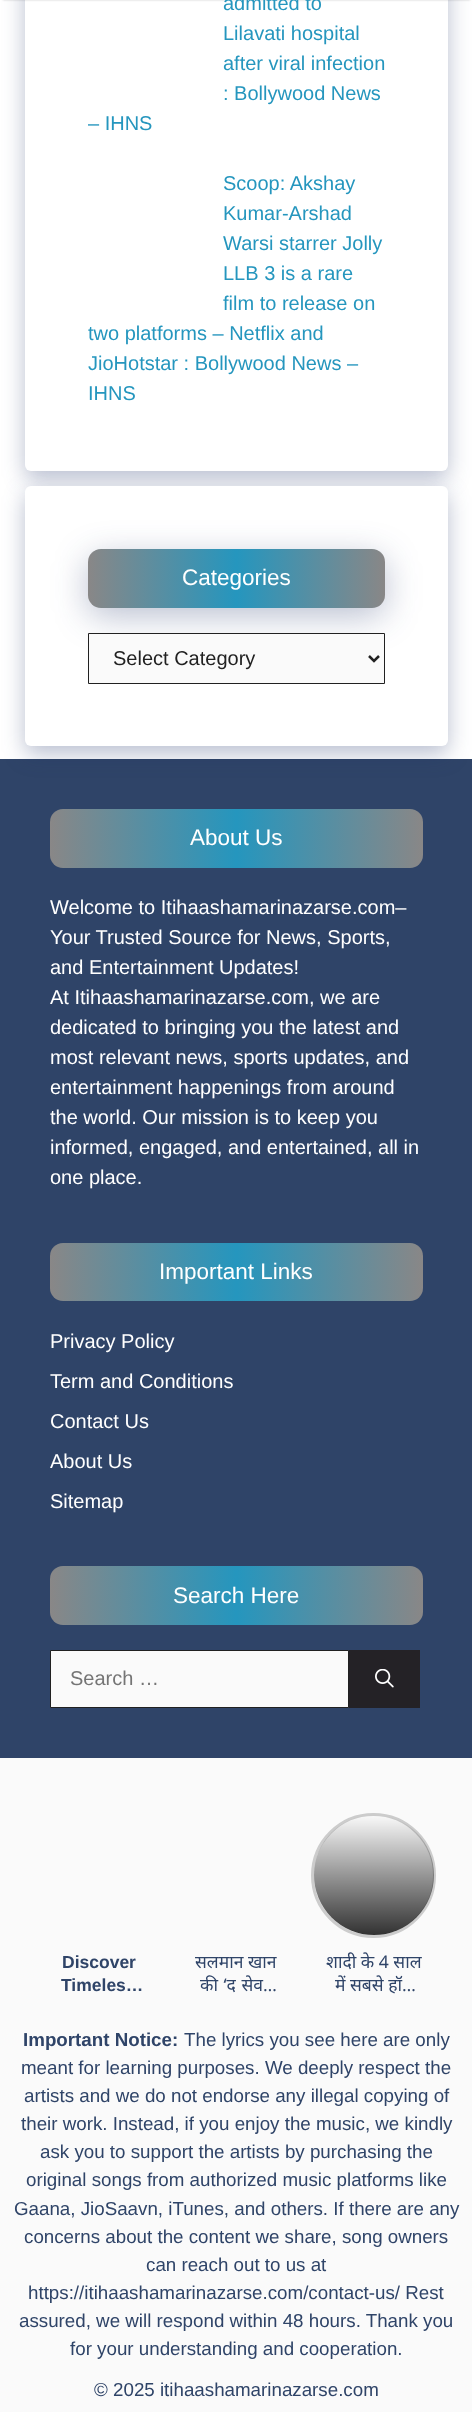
<svg xmlns="http://www.w3.org/2000/svg" width="472" height="2412">
<style>
.a{font:20px Liberation Sans;fill:#2596be}
.b{font:22.5px Liberation Sans;fill:#fff}
.c{font:20px Liberation Sans;fill:#212121}
.d{font:20px Liberation Sans;fill:#fff}
.e{font:20px Liberation Sans;fill:#757575}
.f{font:bold 17.5px Liberation Sans;fill:#2f4468}
.g{font:17.5px Noto Sans;fill:#2f4468}
.h{font:bold 18.75px Liberation Sans;fill:#2f4468}
.i{font:18.75px Liberation Sans;fill:#2f4468}
</style>
<defs>
<linearGradient id="g1" gradientUnits="userSpaceOnUse" x1="88" y1="578" x2="385" y2="578"><stop offset="0" stop-color="#898787"/><stop offset="0.5" stop-color="#2596be"/><stop offset="1" stop-color="#898787"/></linearGradient>
<linearGradient id="g2" gradientUnits="userSpaceOnUse" x1="50" y1="838" x2="423" y2="838"><stop offset="0" stop-color="#898787"/><stop offset="0.5" stop-color="#2596be"/><stop offset="1" stop-color="#898787"/></linearGradient>
<linearGradient id="g3" gradientUnits="userSpaceOnUse" x1="50" y1="1272" x2="423" y2="1272"><stop offset="0" stop-color="#898787"/><stop offset="0.5" stop-color="#2596be"/><stop offset="1" stop-color="#898787"/></linearGradient>
<linearGradient id="g4" gradientUnits="userSpaceOnUse" x1="50" y1="1596" x2="423" y2="1596"><stop offset="0" stop-color="#898787"/><stop offset="0.5" stop-color="#2596be"/><stop offset="1" stop-color="#898787"/></linearGradient>
<linearGradient id="g5" gradientUnits="userSpaceOnUse" x1="374" y1="1815" x2="374" y2="1935"><stop offset="0" stop-color="#000" stop-opacity="0"/><stop offset="1" stop-color="#000" stop-opacity="0.8"/></linearGradient>
</defs>
<rect width="100%" height="100%" fill="#fafafa"/>
<path fill="#fff" d="M0 0h472v759H0z"/>
<rect fill="#172b634d" filter="blur(11px)" x="25" y="-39" width="423" height="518" rx="6"/>
<rect fill="#fff" x="25" y="-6" width="423" height="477" rx="6"/>
<path fill="#00000033" filter="blur(1px)" d="M3 -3h467v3H3z"/>
<path fill="#2f4468" d="M0 759h472v999H0z"/>
<rect fill="#172b634d" filter="blur(11px)" x="25" y="494" width="423" height="260" rx="6"/>
<rect fill="#fff" x="25" y="486" width="423" height="260" rx="6"/>
<rect fill="#172b634d" filter="blur(17.5px)" x="88" y="558" width="297" height="58" rx="13"/>
<rect fill="url(#g1)" x="88" y="549" width="297" height="59" rx="13"/>
<path fill="#fafafa" stroke="#212121" d="M88.5 633.5h296v50H88.5z"/>
<path fill="none" stroke="#212121" stroke-width="2.5" d="M369 656l5 5l5-5"/>
<rect fill="url(#g2)" x="50" y="809" width="373" height="59" rx="13"/>
<rect fill="url(#g3)" x="50" y="1243" width="373" height="58" rx="13"/>
<rect fill="url(#g4)" x="50" y="1566" width="373" height="59" rx="13"/>
<path fill="#fafafa" stroke="#212121" d="M50.5 1650.5h298v57H50.5z"/>
<path fill="#242226" d="M349 1650h71v58H349z"/>
<image href="1.png" x="375" y="1669" width="19" height="19"/>
<circle fill="none" stroke="#ccc" stroke-width="3" cx="373.5" cy="1875.5" r="61"/>
<circle fill="url(#g5)" cx="374" cy="1875" r="60"/>
<text class="a" x="223" y="10">admitted to</text>
<text class="a" x="223" y="40">Lilavati hospital</text>
<text class="a" x="223" y="70">after viral infection</text>
<text class="a" x="223" y="100">: Bollywood News</text>
<text class="a" x="88" y="130">– IHNS</text>
<text class="a" x="223" y="190">Scoop: Akshay</text>
<text class="a" x="223" y="220">Kumar-Arshad</text>
<text class="a" x="223" y="250">Warsi starrer Jolly</text>
<text class="a" x="223" y="280">LLB 3 is a rare</text>
<text class="a" x="223" y="310">film to release on</text>
<text class="a" x="88" y="340">two platforms – Netflix and</text>
<text class="a" x="88" y="370">JioHotstar : Bollywood News –</text>
<text class="a" x="88" y="400">IHNS</text>
<text class="b" x="182" y="585">Categories</text>
<text class="c" x="113" y="665">Select Category</text>
<text class="b" x="190" y="845">About Us</text>
<text class="d" x="50" y="914">Welcome to Itihaashamarinazarse.com–</text>
<text class="d" x="50" y="944">Your Trusted Source for News, Sports,</text>
<text class="d" x="50" y="974">and Entertainment Updates!</text>
<text class="d" x="50" y="1004">At Itihaashamarinazarse.com, we are</text>
<text class="d" x="50" y="1034">dedicated to bringing you the latest and</text>
<text class="d" x="50" y="1064">most relevant news, sports updates, and</text>
<text class="d" x="50" y="1094">entertainment happenings from around</text>
<text class="d" x="50" y="1124">the world. Our mission is to keep you</text>
<text class="d" x="50" y="1154">informed, engaged, and entertained, all in</text>
<text class="d" x="50" y="1184">one place.</text>
<text class="b" x="159" y="1279">Important Links</text>
<text class="d" x="50" y="1348">Privacy Policy</text>
<text class="d" x="50" y="1388">Term and Conditions</text>
<text class="d" x="50" y="1428">Contact Us</text>
<text class="d" x="50" y="1468">About Us</text>
<text class="d" x="50" y="1508">Sitemap</text>
<text class="b" x="173" y="1603">Search Here</text>
<text class="e" x="70" y="1685">Search …</text>
<text class="f" x="62" y="1968">Discover</text>
<text class="f" x="61" y="1991">Timeles…</text>
<text class="g" x="195" y="1968">सलमान खान</text>
<text class="g" x="200" y="1991" word-spacing="1">की ‘द सेव…</text>
<text class="g" x="326" y="1968">शादी के 4 साल</text>
<text class="g" x="335" y="1991">में सबसे हॉ…</text>
<text class="h" x="23" y="2046">Important Notice:</text>
<text class="i" x="184" y="2046">The lyrics you see here are only</text>
<text class="i" x="21" y="2074">meant for learning purposes. We deeply respect the</text>
<text class="i" x="24" y="2102">artists and we do not endorse any illegal copying of</text>
<text class="i" x="21" y="2130">their work. Instead, if you enjoy the music, we kindly</text>
<text class="i" x="40" y="2158">ask you to support the artists by purchasing the</text>
<text class="i" x="26" y="2186">original songs from authorized music platforms like</text>
<text class="i" x="14" y="2215">Gaana, JioSaavn, iTunes, and others. If there are any</text>
<text class="i" x="24" y="2243">concerns about the content we share, song owners</text>
<text class="i" x="146" y="2271">can reach out to us at</text>
<text class="i" x="28" y="2299">https://itihaashamarinazarse.com/contact-us/ Rest</text>
<text class="i" x="19" y="2327">assured, we will respond within 48 hours. Thank you</text>
<text class="i" x="70" y="2355">for your understanding and cooperation.</text>
<text class="i" x="94" y="2396">© 2025 itihaashamarinazarse.com</text>
</svg>
